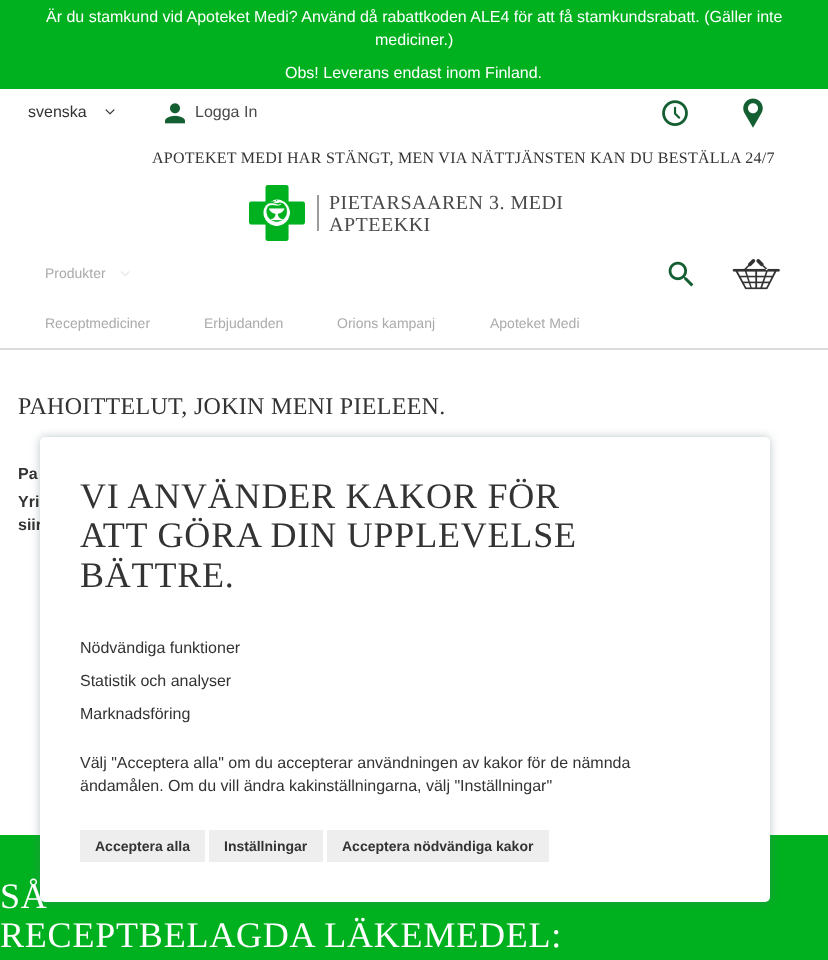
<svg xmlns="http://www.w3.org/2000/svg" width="828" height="960">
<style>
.a{font:16px Liberation Sans;fill:#fff}
.b{font:16px Liberation Sans;fill:#333}
.c{font:16px Liberation Sans;fill:#4a4a4a}
.d{font:16px Liberation Serif;letter-spacing:0.27px;fill:#333}
.e{font:20px Liberation Serif;letter-spacing:0.5px;fill:#4a4a4a}
.f{font:14px Liberation Sans;fill:#aaa}
.g{font:24px Liberation Serif;letter-spacing:0.3px;fill:#333}
.h{font:bold 16px Liberation Sans;fill:#333}
.i{font:36px Liberation Serif;letter-spacing:0.8px;fill:#333}
.j{font:bold 14px Liberation Sans;fill:#333}
.k{font:36px Liberation Serif;letter-spacing:0.8px;fill:#fff}
</style>
<rect width="100%" height="100%" fill="#fff"/>
<path fill="#dcdcdc" d="M0 348h828v2H0z"/>
<path fill="#00b11f" d="M0 0h828v89H0z"/>
<image href="1.png" x="105" y="109" width="10" height="6"/>
<image href="2.png" x="165" y="103" width="20" height="21"/>
<image href="3.png" x="662" y="100" width="26" height="26"/>
<image href="4.png" x="743" y="98" width="20" height="30"/>
<image href="5.png" x="249" y="185" width="56" height="56"/>
<path fill="#9b9b9b" d="M317 195h2v36H317z"/>
<image href="6.png" x="120" y="271" width="10" height="6"/>
<image href="7.png" x="668" y="261" width="26" height="26"/>
<image href="8.png" x="732" y="259" width="48" height="31"/>
<path fill="#00b11f" d="M0 835h828v125H0z"/>
<rect fill="#54747866" filter="blur(5px)" x="40" y="437" width="730" height="465" rx="5"/>
<text class="a" x="46" y="22">Är du stamkund vid Apoteket Medi? Använd då rabattkoden ALE4 för att få stamkundsrabatt. (Gäller inte</text>
<text class="a" x="375" y="45">mediciner.)</text>
<text class="a" x="285" y="78">Obs! Leverans endast inom Finland.</text>
<text class="b" x="28" y="117">svenska</text>
<text class="c" x="195" y="117">Logga In</text>
<text class="d" x="152" y="163">APOTEKET MEDI HAR STÄNGT, MEN VIA NÄTTJÄNSTEN KAN DU BESTÄLLA 24/7</text>
<text class="e" x="329" y="209">PIETARSAAREN 3. MEDI</text>
<text class="e" x="329" y="231">APTEEKKI</text>
<text class="f" x="45" y="278">Produkter</text>
<text class="f" x="45" y="328">Receptmediciner</text>
<text class="f" x="204" y="328">Erbjudanden</text>
<text class="f" x="337" y="328">Orions kampanj</text>
<text class="f" x="490" y="328">Apoteket Medi</text>
<text class="g" x="18" y="414">PAHOITTELUT, JOKIN MENI PIELEEN.</text>
<text class="h" x="18" y="479">Pa</text>
<text class="h" x="18" y="507">Yri</text>
<text class="h" x="18" y="530">siir</text>
<rect fill="#fff" x="40" y="437" width="730" height="465" rx="5"/>
<text class="i" x="80" y="508">VI ANVÄNDER KAKOR FÖR</text>
<text class="i" x="80" y="547">ATT GÖRA DIN UPPLEVELSE</text>
<text class="i" x="80" y="587">BÄTTRE.</text>
<text class="b" x="80" y="653">Nödvändiga funktioner</text>
<text class="b" x="80" y="686">Statistik och analyser</text>
<text class="b" x="80" y="719">Marknadsföring</text>
<text class="b" x="80" y="768">Välj "Acceptera alla" om du accepterar användningen av kakor för de nämnda</text>
<text class="b" x="80" y="791">ändamålen. Om du vill ändra kakinställningarna, välj "Inställningar"</text>
<path fill="#eee" d="M80 830h125v32H80z"/>
<text class="j" x="95" y="851">Acceptera alla</text>
<path fill="#eee" d="M209 830h114v32H209z"/>
<text class="j" x="224" y="851">Inställningar</text>
<path fill="#eee" d="M327 830h222v32H327z"/>
<text class="j" x="342" y="851">Acceptera nödvändiga kakor</text>
<text class="k" x="0" y="908">SÅ</text>
<text class="k" x="0" y="947">RECEPTBELAGDA LÄKEMEDEL:</text>
</svg>
